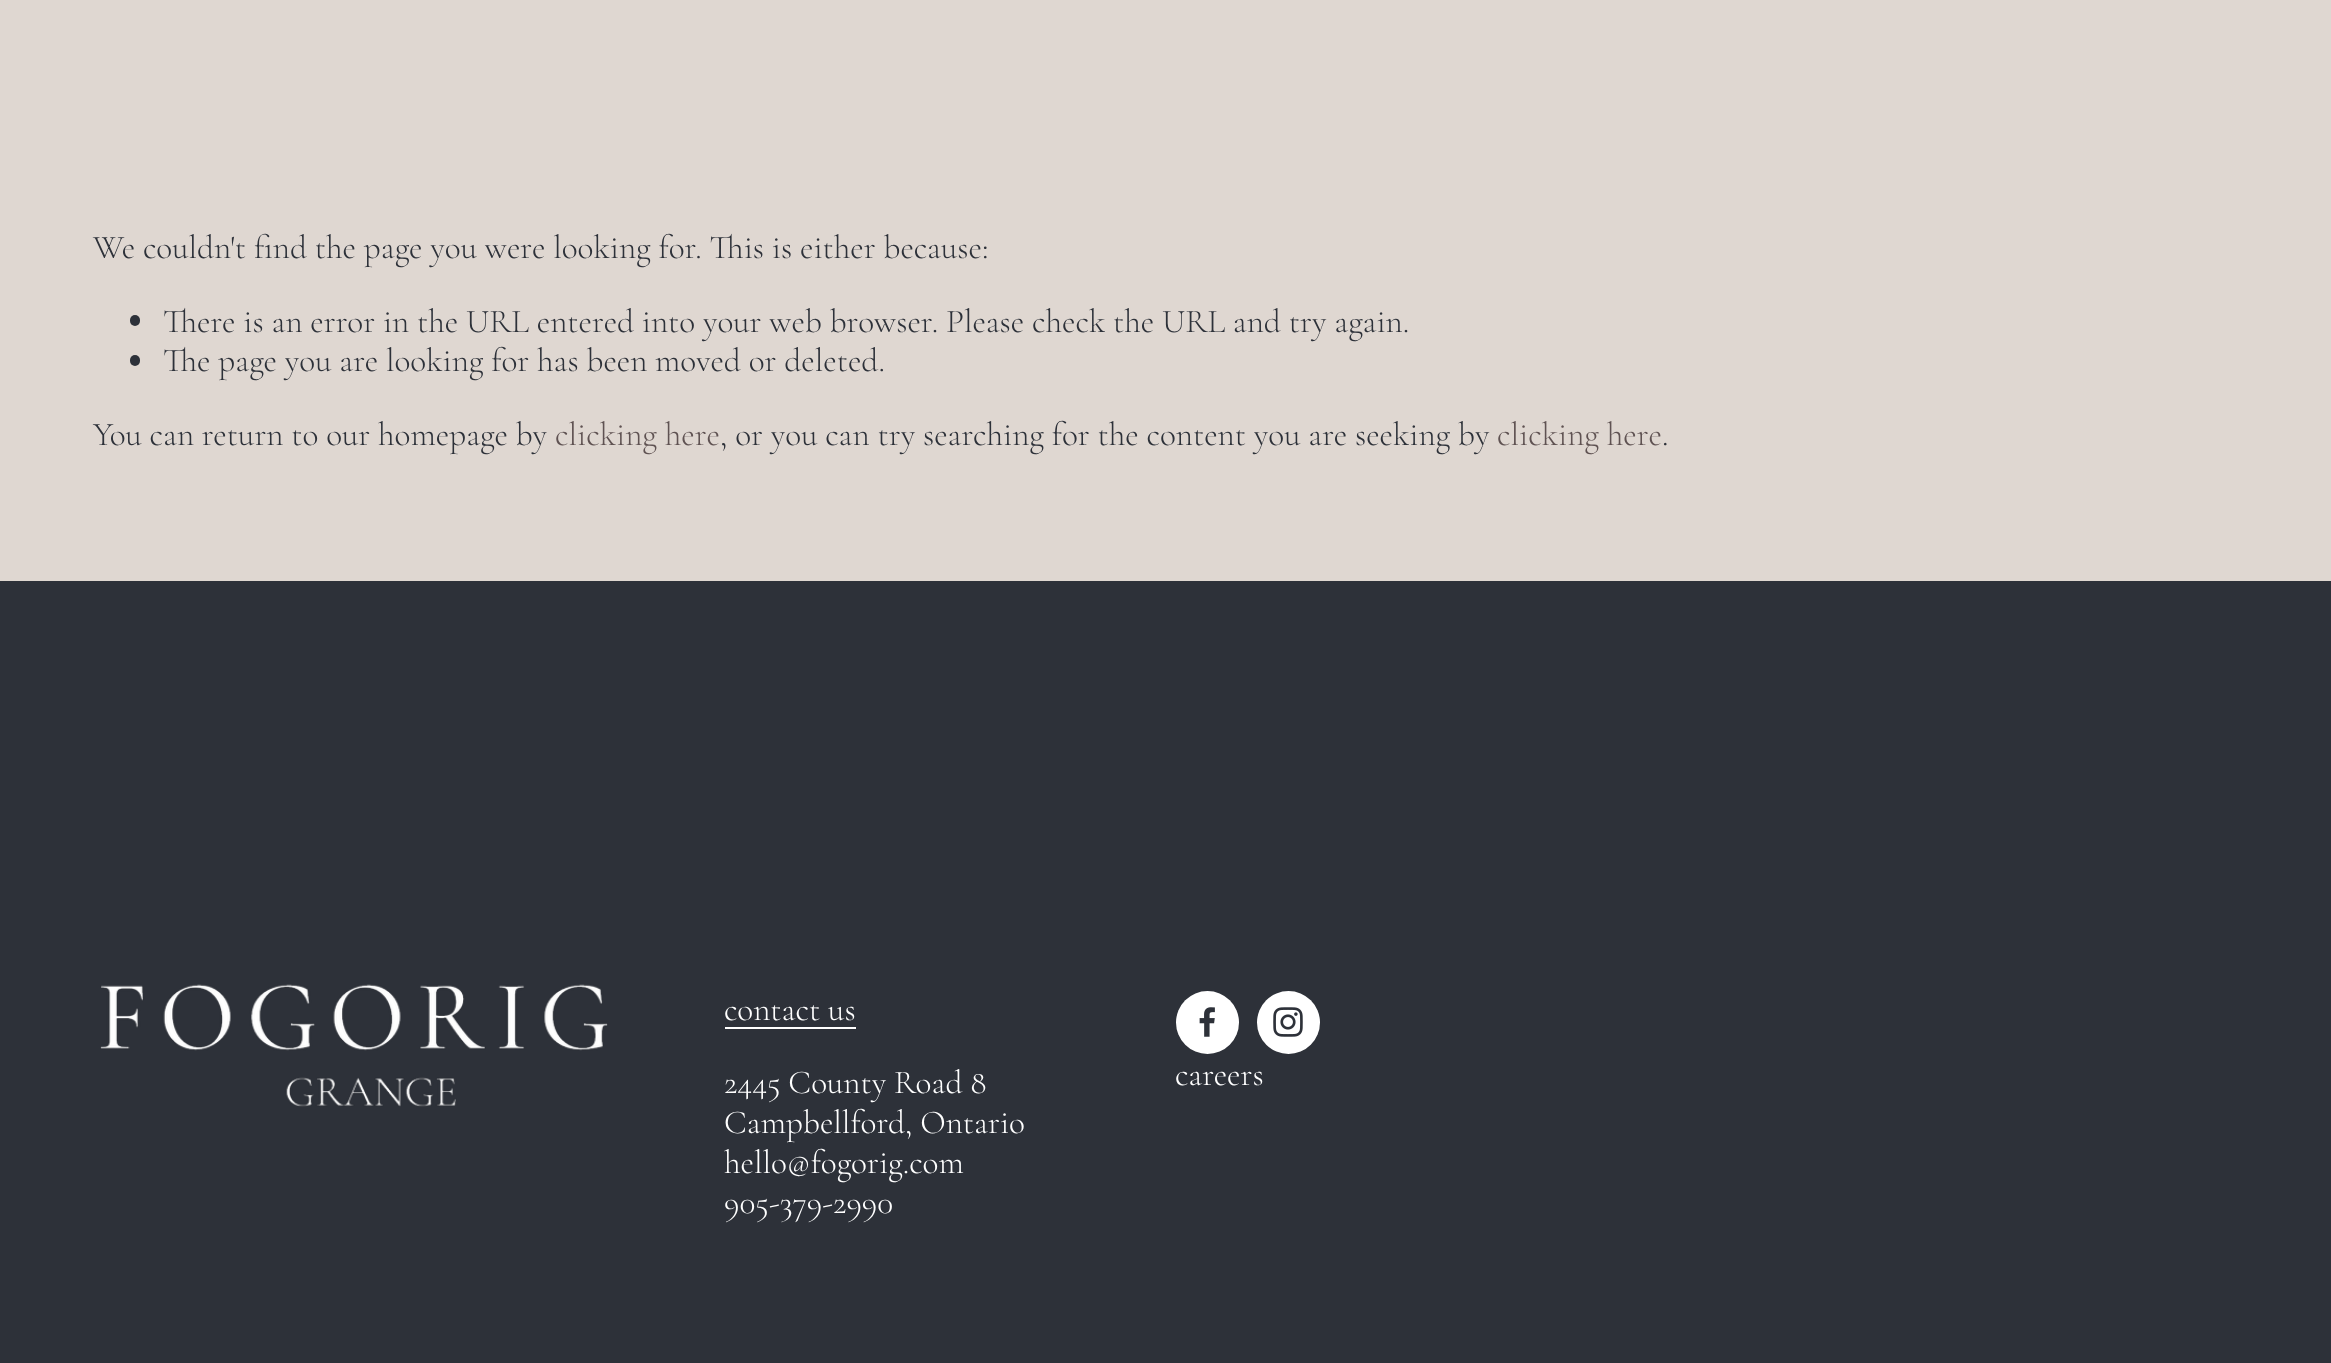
<svg xmlns="http://www.w3.org/2000/svg" width="2331" height="1363">
<style>
.a{font:300 33.25px Cormorant Garamond;fill:#2d3139}
.b{font:300 33.25px Cormorant Garamond;fill:#5f5252}
.c{font:300 33.25px Cormorant Garamond;fill:#fff}
</style>
<rect width="100%" height="100%" fill="#dfd7d1"/>
<rect fill="#2d3139" x="130" y="315" width="10" height="11" rx="5"/>
<rect fill="#2d3139" x="130" y="355" width="10" height="11" rx="5"/>
<path fill="#2d3139" d="M0 581h2331v782H0z"/>
<image href="1.png" x="100" y="984" width="508" height="123"/>
<path fill="#fff" d="M725 1027h131v2H725z"/>
<circle fill="#fff" cx="1207.5" cy="1022.5" r="31.5"/>
<image href="2.png" x="1199" y="1007" width="16" height="30"/>
<circle fill="#fff" cx="1288.5" cy="1022.5" r="31.5"/>
<image href="3.png" x="1273" y="1007" width="30" height="30"/>
<text class="a" x="93" y="258">We couldn't find the page you were looking for. This is either because:</text>
<text class="a" x="163" y="332">There is an error in the URL entered into your web browser. Please check the URL and try again.</text>
<text class="a" x="163" y="371">The page you are looking for has been moved or deleted.</text>
<text class="a" x="93" y="445">You can return to our homepage by</text>
<text class="b" x="555" y="445">clicking here</text>
<text class="a" x="720" y="445">, or you can try searching for the content you are seeking by</text>
<text class="b" x="1497" y="445">clicking here</text>
<text class="a" x="1662" y="445">.</text>
<text class="c" x="724" y="1020">contact us</text>
<text class="c" x="724" y="1093">2445 County Road 8</text>
<text class="c" x="724" y="1133">Campbellford, Ontario</text>
<text class="c" x="724" y="1173">hello@fogorig.com</text>
<text class="c" x="724" y="1213">905-379-2990</text>
<text class="c" x="1175" y="1085">careers</text>
</svg>
